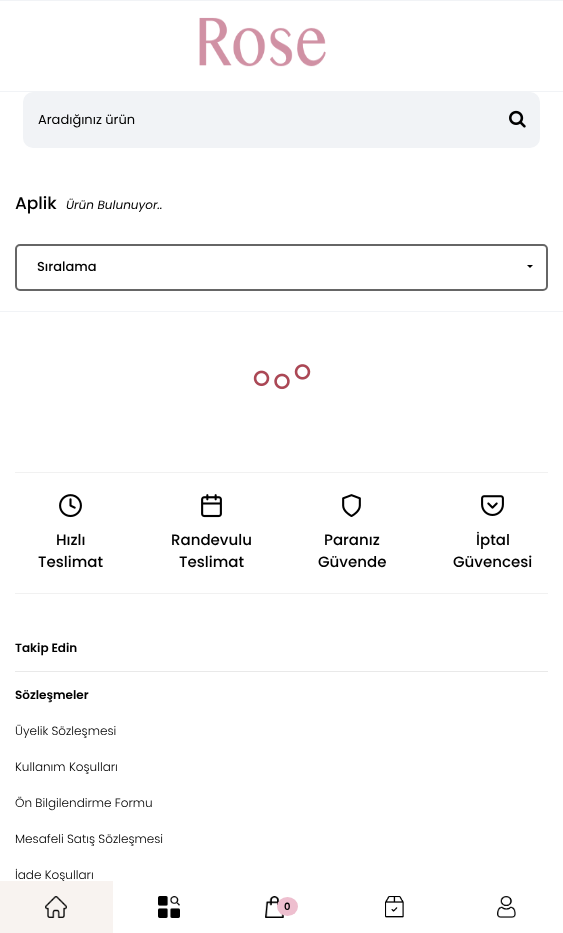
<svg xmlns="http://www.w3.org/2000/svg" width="563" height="933">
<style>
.a{font:13px Poppins;fill:#000}
.b{font:500 17px Poppins;fill:#000}
.c{font:italic 12px Poppins;fill:#000}
.d{font:500 13px Poppins;fill:#000}
.e{font:500 15px Poppins;fill:#000}
.f{font:600 12px Poppins;fill:#000}
.g{font:300 12px Poppins;fill:#000}
.h{font:600 10px Poppins;fill:#000}
</style>
<rect width="100%" height="100%" fill="#fff"/>
<path fill="#f1f3f6" d="M0 0h563v1H0z"/>
<path fill="#f1f3f6" d="M0 91h563v1H0z"/>
<image href="1.png" x="199" y="17" width="127" height="50"/>
<rect fill="#f1f3f6" x="23" y="92" width="517" height="56" rx="10"/>
<image href="2.png" x="509" y="110" width="17" height="18"/>
<path fill="#f1f3f6" d="M0 311h563v1H0z"/>
<rect fill="none" stroke="#666" stroke-width="2" x="16" y="245" width="531" height="45" rx="4"/>
<path fill="#000" d="M527 265h6l-3 3z"/>
<image href="3.png" x="253" y="364" width="58" height="26"/>
<path fill="#f1f1f1" d="M15 472h533v1H15z"/>
<image href="4.png" x="59" y="494" width="23" height="24"/>
<image href="5.png" x="201" y="494" width="21" height="24"/>
<image href="6.png" x="342" y="494" width="19" height="23"/>
<image href="7.png" x="481" y="495" width="23" height="21"/>
<path fill="#f1f1f1" d="M15 593h533v1H15z"/>
<path fill="#e9e9e9" d="M15 671h533v1H15z"/>
<image href="9.png" x="158" y="896" width="22" height="22"/>
<image href="10.png" x="265" y="896" width="19" height="22"/>
<ellipse fill="#eebfcf" cx="287.5" cy="906.5" rx="10.5" ry="9.5"/>
<image href="11.png" x="385" y="896" width="19" height="22"/>
<image href="12.png" x="497" y="896" width="19" height="22"/>
<text class="a" x="38" y="124">Aradığınız ürün</text>
<text class="b" x="15" y="209">Aplik</text>
<text class="c" x="66" y="209">Ürün Bulunuyor..</text>
<text class="d" x="37" y="271">Sıralama</text>
<text class="e" x="56" y="545">Hızlı</text>
<text class="e" x="38" y="567">Teslimat</text>
<text class="e" x="171" y="545">Randevulu</text>
<text class="e" x="179" y="567">Teslimat</text>
<text class="e" x="324" y="545">Paranız</text>
<text class="e" x="318" y="567">Güvende</text>
<text class="e" x="476" y="545">İptal</text>
<text class="e" x="453" y="567">Güvencesi</text>
<text class="f" x="15" y="652">Takip Edin</text>
<text class="f" x="15" y="699">Sözleşmeler</text>
<text class="g" x="15" y="735">Üyelik Sözleşmesi</text>
<text class="g" x="15" y="771">Kullanım Koşulları</text>
<text class="g" x="15" y="807">Ön Bilgilendirme Formu</text>
<text class="g" x="15" y="843">Mesafeli Satış Sözleşmesi</text>
<text class="g" x="15" y="879">İade Koşulları</text>
<path fill="#f8f3f0" d="M0 881h113v52H0z"/>
<image href="8.png" x="45" y="896" width="22" height="22"/>
<text class="h" x="284" y="910">0</text>
</svg>
